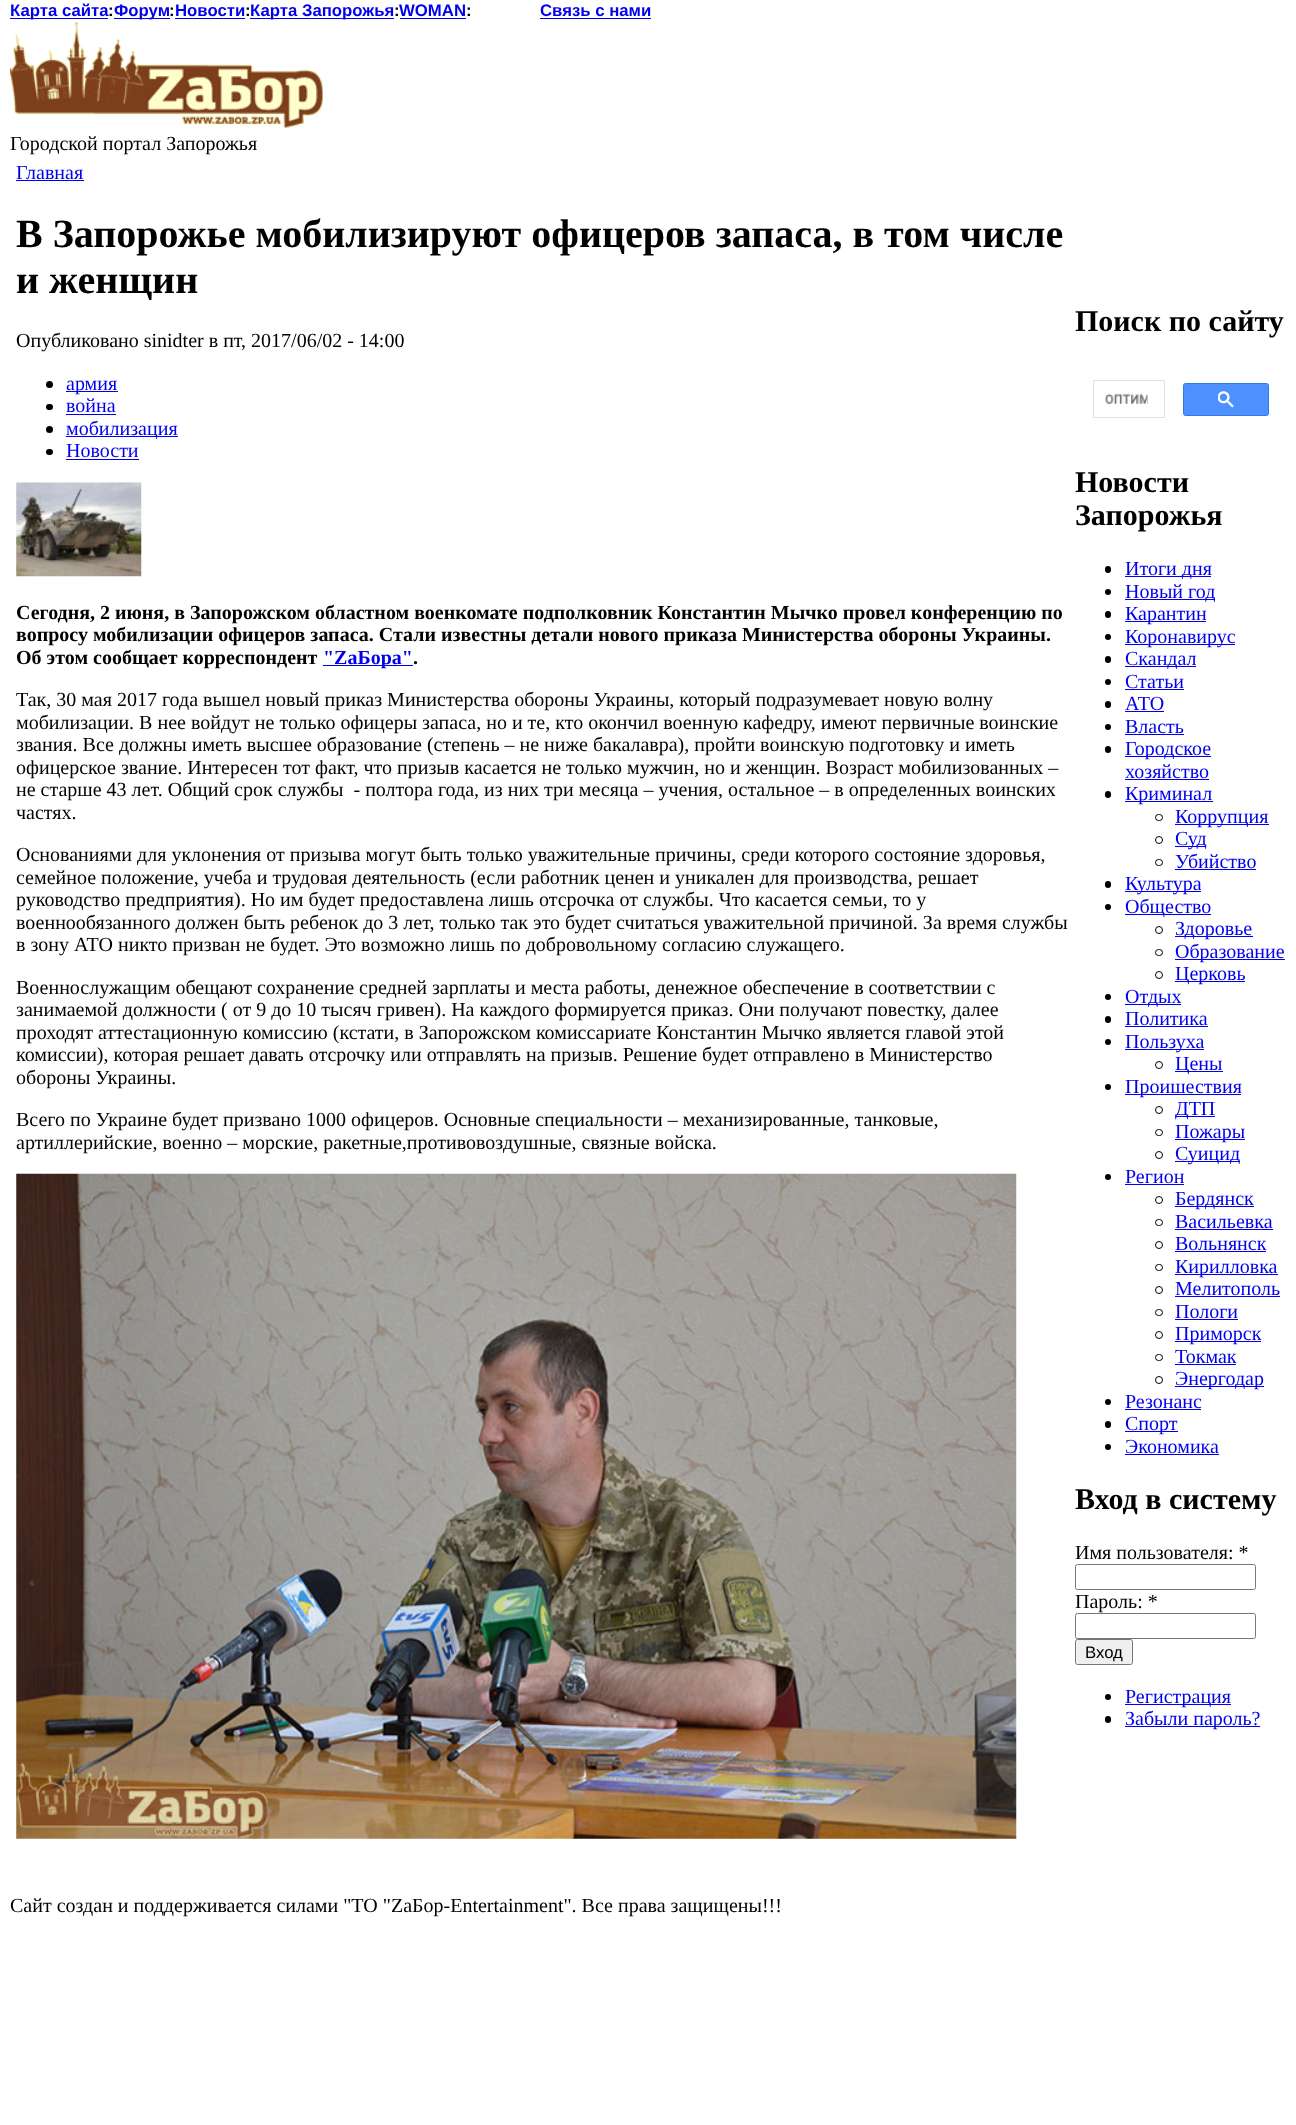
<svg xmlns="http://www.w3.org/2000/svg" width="1296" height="2125">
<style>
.a{font:bold 16.75px Liberation Sans;fill:#00e}
.b{font:bold 16.75px Liberation Sans;fill:#000}
.c{font:20px Liberation Serif;fill:#000}
.d{font:20px Liberation Serif;fill:#00e}
.e{font:bold 40px Liberation Serif;fill:#000}
.f{font:bold 20px Liberation Serif;fill:#000}
.g{font:bold 20px Liberation Serif;fill:#00e}
.h{font:bold 30px Liberation Serif;fill:#000}
.i{font:16.75px Liberation Sans;fill:#000}
</style>
<rect width="100%" height="100%" fill="#fff"/>
<path fill="#00e" d="M10 18h98v1H10z"/>
<path fill="#00e" d="M114 18h56v1H114z"/>
<path fill="#00e" d="M175 18h70v1H175z"/>
<path fill="#00e" d="M250 18h144v1H250z"/>
<path fill="#00e" d="M400 18h66v1H400z"/>
<path fill="#00e" d="M540 18h111v1H540z"/>
<image href="1.png" x="10" y="22" width="313" height="106"/>
<path fill="#00e" d="M16 180h68v1H16z"/>
<circle fill="#000" cx="49.5" cy="384.5" r="3.5"/>
<path fill="#00e" d="M66 391h52v1H66z"/>
<rect fill="#000" x="46" y="404" width="7" height="6" rx="3"/>
<path fill="#00e" d="M66 414h50v1H66z"/>
<circle fill="#000" cx="49.5" cy="429.5" r="3.5"/>
<path fill="#00e" d="M66 436h112v1H66z"/>
<rect fill="#000" x="46" y="449" width="7" height="6" rx="3"/>
<path fill="#00e" d="M66 459h73v1H66z"/>
<image href="2.png" x="16" y="482" width="126" height="95"/>
<path fill="#00e" d="M323 665h90v1H323z"/>
<image href="3.png" x="16" y="1173" width="1001" height="666"/>
<path fill="none" stroke="#dfe1e5" d="M1093.5 380.5h71v37H1093.5z"/>
<image href="4.png" x="1105" y="393" width="43" height="11"/>
<rect fill="#4d90fe" stroke="#3079ed" x="1183.5" y="383.5" width="85" height="32" rx="2"/>
<image href="5.png" x="1218" y="391" width="16" height="17"/>
<rect fill="#000" x="1105" y="566" width="6" height="7" rx="3"/>
<path fill="#00e" d="M1125 576h86v1H1125z"/>
<circle fill="#000" cx="1108" cy="592" r="3"/>
<path fill="#00e" d="M1125 599h90v1H1125z"/>
<rect fill="#000" x="1105" y="611" width="6" height="7" rx="3"/>
<path fill="#00e" d="M1125 621h81v1H1125z"/>
<circle fill="#000" cx="1108" cy="637" r="3"/>
<path fill="#00e" d="M1125 644h110v1H1125z"/>
<rect fill="#000" x="1105" y="656" width="6" height="7" rx="3"/>
<path fill="#00e" d="M1125 666h71v1H1125z"/>
<circle fill="#000" cx="1108" cy="682" r="3"/>
<path fill="#00e" d="M1125 689h59v1H1125z"/>
<rect fill="#000" x="1105" y="701" width="6" height="7" rx="3"/>
<path fill="#00e" d="M1125 711h39v1H1125z"/>
<circle fill="#000" cx="1108" cy="727" r="3"/>
<path fill="#00e" d="M1125 734h59v1H1125z"/>
<rect fill="#000" x="1105" y="746" width="6" height="7" rx="3"/>
<path fill="#00e" d="M1125 756h86v1H1125z"/>
<path fill="#00e" d="M1125 779h84v1H1125z"/>
<rect fill="#000" x="1105" y="791" width="6" height="7" rx="3"/>
<path fill="#00e" d="M1125 801h88v1H1125z"/>
<rect fill="none" stroke="#000" x="1155.5" y="814.5" width="7" height="6" rx="3"/>
<path fill="#00e" d="M1175 824h94v1H1175z"/>
<circle fill="none" stroke="#000" cx="1159" cy="840" r="3.5"/>
<path fill="#00e" d="M1175 846h31v1H1175z"/>
<rect fill="none" stroke="#000" x="1155.5" y="859.5" width="7" height="6" rx="3"/>
<path fill="#00e" d="M1175 869h81v1H1175z"/>
<rect fill="#000" x="1105" y="881" width="6" height="7" rx="3"/>
<path fill="#00e" d="M1125 891h76v1H1125z"/>
<circle fill="#000" cx="1108" cy="907" r="3"/>
<path fill="#00e" d="M1125 914h86v1H1125z"/>
<circle fill="none" stroke="#000" cx="1159" cy="930" r="3.5"/>
<path fill="#00e" d="M1175 936h78v1H1175z"/>
<rect fill="none" stroke="#000" x="1155.5" y="949.5" width="7" height="6" rx="3"/>
<path fill="#00e" d="M1175 959h110v1H1175z"/>
<circle fill="none" stroke="#000" cx="1159" cy="975" r="3.5"/>
<path fill="#00e" d="M1175 981h70v1H1175z"/>
<circle fill="#000" cx="1108" cy="997" r="3"/>
<path fill="#00e" d="M1125 1004h56v1H1125z"/>
<rect fill="#000" x="1105" y="1016" width="6" height="7" rx="3"/>
<path fill="#00e" d="M1125 1026h83v1H1125z"/>
<circle fill="#000" cx="1108" cy="1042" r="3"/>
<path fill="#00e" d="M1125 1049h79v1H1125z"/>
<circle fill="none" stroke="#000" cx="1159" cy="1065" r="3.5"/>
<path fill="#00e" d="M1175 1071h48v1H1175z"/>
<circle fill="#000" cx="1108" cy="1087" r="3"/>
<path fill="#00e" d="M1125 1094h116v1H1125z"/>
<circle fill="none" stroke="#000" cx="1159" cy="1110" r="3.5"/>
<path fill="#00e" d="M1175 1116h40v1H1175z"/>
<rect fill="none" stroke="#000" x="1155.5" y="1129.5" width="7" height="6" rx="3"/>
<path fill="#00e" d="M1175 1139h70v1H1175z"/>
<circle fill="none" stroke="#000" cx="1159" cy="1155" r="3.5"/>
<path fill="#00e" d="M1175 1161h65v1H1175z"/>
<circle fill="#000" cx="1108" cy="1177" r="3"/>
<path fill="#00e" d="M1125 1184h59v1H1125z"/>
<circle fill="none" stroke="#000" cx="1159" cy="1200" r="3.5"/>
<path fill="#00e" d="M1175 1206h79v1H1175z"/>
<rect fill="none" stroke="#000" x="1155.5" y="1219.5" width="7" height="6" rx="3"/>
<path fill="#00e" d="M1175 1229h98v1H1175z"/>
<circle fill="none" stroke="#000" cx="1159" cy="1245" r="3.5"/>
<path fill="#00e" d="M1175 1251h91v1H1175z"/>
<rect fill="none" stroke="#000" x="1155.5" y="1264.5" width="7" height="6" rx="3"/>
<path fill="#00e" d="M1175 1274h103v1H1175z"/>
<circle fill="none" stroke="#000" cx="1159" cy="1290" r="3.5"/>
<path fill="#00e" d="M1175 1296h105v1H1175z"/>
<rect fill="none" stroke="#000" x="1155.5" y="1309.5" width="7" height="6" rx="3"/>
<path fill="#00e" d="M1175 1319h63v1H1175z"/>
<circle fill="none" stroke="#000" cx="1159" cy="1335" r="3.5"/>
<path fill="#00e" d="M1175 1341h86v1H1175z"/>
<rect fill="none" stroke="#000" x="1155.5" y="1354.5" width="7" height="6" rx="3"/>
<path fill="#00e" d="M1175 1364h61v1H1175z"/>
<circle fill="none" stroke="#000" cx="1159" cy="1380" r="3.5"/>
<path fill="#00e" d="M1175 1386h89v1H1175z"/>
<circle fill="#000" cx="1108" cy="1402" r="3"/>
<path fill="#00e" d="M1125 1409h76v1H1125z"/>
<rect fill="#000" x="1105" y="1421" width="6" height="7" rx="3"/>
<path fill="#00e" d="M1125 1431h53v1H1125z"/>
<circle fill="#000" cx="1108" cy="1447" r="3"/>
<path fill="#00e" d="M1125 1454h94v1H1125z"/>
<rect fill="none" stroke="#767676" x="1075.5" y="1564.5" width="180" height="25" rx="2"/>
<rect fill="none" stroke="#767676" x="1075.5" y="1613.5" width="180" height="25" rx="2"/>
<rect fill="#efefef" stroke="#767676" x="1075.5" y="1639.5" width="57" height="25" rx="2"/>
<circle fill="#000" cx="1108" cy="1697" r="3"/>
<path fill="#00e" d="M1125 1704h106v1H1125z"/>
<rect fill="#000" x="1105" y="1716" width="6" height="7" rx="3"/>
<path fill="#00e" d="M1125 1726h135v1H1125z"/>
<text class="a" x="10" y="16">Карта сайта</text>
<text class="b" x="108" y="16">:</text>
<text class="a" x="114" y="16">Форум</text>
<text class="b" x="169" y="16">:</text>
<text class="a" x="175" y="16">Новости</text>
<text class="b" x="245" y="16">:</text>
<text class="a" x="250" y="16">Карта Запорожья</text>
<text class="b" x="394" y="16">:</text>
<text class="a" x="399" y="16">WOMAN</text>
<text class="b" x="466" y="16">:</text>
<text class="a" x="540" y="16">Связь с нами</text>
<text class="c" x="10" y="150">Городской портал Запорожья</text>
<text class="d" x="16" y="179">Главная</text>
<text class="e" x="16" y="247">В Запорожье мобилизируют офицеров запаса, в том числе</text>
<text class="e" x="16" y="293">и женщин</text>
<text class="c" x="16" y="347">Опубликовано sinidter в пт, 2017/06/02 - 14:00</text>
<text class="d" x="66" y="390">армия</text>
<text class="d" x="66" y="412">война</text>
<text class="d" x="66" y="435">мобилизация</text>
<text class="d" x="66" y="457">Новости</text>
<text class="f" x="16" y="619">Сегодня, 2 июня, в Запорожском областном военкомате подполковник Константин Мычко провел конференцию по</text>
<text class="f" x="16" y="641">вопросу мобилизации офицеров запаса. Стали известны детали нового приказа Министерства обороны Украины.</text>
<text class="f" x="16" y="664">Об этом сообщает корреспондент</text>
<text class="g" x="323" y="664">"ZаБора"</text>
<text class="f" x="413" y="664">.</text>
<text class="c" x="16" y="706">Так, 30 мая 2017 года вышел новый приказ Министерства обороны Украины, который подразумевает новую волну</text>
<text class="c" x="16" y="729">мобилизации. В нее войдут не только офицеры запаса, но и те, кто окончил военную кафедру, имеют первичные воинские</text>
<text class="c" x="16" y="751">звания. Все должны иметь высшее образование (степень – не ниже бакалавра), пройти воинскую подготовку и иметь</text>
<text class="c" x="16" y="774">офицерское звание. Интересен тот факт, что призыв касается не только мужчин, но и женщин. Возраст мобилизованных –</text>
<text class="c" xml:space="preserve" x="16" y="796">не старше 43 лет. Общий срок службы  - полтора года, из них три месяца – учения, остальное – в определенных воинских</text>
<text class="c" x="16" y="819">частях.</text>
<text class="c" x="16" y="861">Основаниями для уклонения от призыва могут быть только уважительные причины, среди которого состояние здоровья,</text>
<text class="c" x="16" y="884">семейное положение, учеба и трудовая деятельность (если работник ценен и уникален для производства, решает</text>
<text class="c" x="16" y="906">руководство предприятия). Но им будет предоставлена лишь отсрочка от службы. Что касается семьи, то у</text>
<text class="c" x="16" y="929">военнообязанного должен быть ребенок до 3 лет, только так это будет считаться уважительной причиной. За время службы</text>
<text class="c" x="16" y="951">в зону АТО никто призван не будет. Это возможно лишь по добровольному согласию служащего.</text>
<text class="c" x="16" y="994">Военнослужащим обещают сохранение средней зарплаты и места работы, денежное обеспечение в соответствии с</text>
<text class="c" x="16" y="1016">занимаемой должности ( от 9 до 10 тысяч гривен). На каждого формируется приказ. Они получают повестку, далее</text>
<text class="c" x="16" y="1039">проходят аттестационную комиссию (кстати, в Запорожском комиссариате Константин Мычко является главой этой</text>
<text class="c" x="16" y="1061">комиссии), которая решает давать отсрочку или отправлять на призыв. Решение будет отправлено в Министерство</text>
<text class="c" x="16" y="1084">обороны Украины.</text>
<text class="c" x="16" y="1126">Всего по Украине будет призвано 1000 офицеров. Основные специальности – механизированные, танковые,</text>
<text class="c" x="16" y="1149">артиллерийские, военно – морские, ракетные,противовоздушные, связные войска.</text>
<text class="h" x="1075" y="331">Поиск по сайту</text>
<text class="h" x="1075" y="492">Новости</text>
<text class="h" x="1075" y="525">Запорожья</text>
<text class="d" x="1125" y="575">Итоги дня</text>
<text class="d" x="1125" y="598">Новый год</text>
<text class="d" x="1125" y="620">Карантин</text>
<text class="d" x="1125" y="643">Коронавирус</text>
<text class="d" x="1125" y="665">Скандал</text>
<text class="d" x="1125" y="688">Статьи</text>
<text class="d" x="1125" y="710">АТО</text>
<text class="d" x="1125" y="733">Власть</text>
<text class="d" x="1125" y="755">Городское</text>
<text class="d" x="1125" y="778">хозяйство</text>
<text class="d" x="1125" y="800">Криминал</text>
<text class="d" x="1175" y="823">Коррупция</text>
<text class="d" x="1175" y="845">Суд</text>
<text class="d" x="1175" y="868">Убийство</text>
<text class="d" x="1125" y="890">Культура</text>
<text class="d" x="1125" y="913">Общество</text>
<text class="d" x="1175" y="935">Здоровье</text>
<text class="d" x="1175" y="958">Образование</text>
<text class="d" x="1175" y="980">Церковь</text>
<text class="d" x="1125" y="1003">Отдых</text>
<text class="d" x="1125" y="1025">Политика</text>
<text class="d" x="1125" y="1048">Пользуха</text>
<text class="d" x="1175" y="1070">Цены</text>
<text class="d" x="1125" y="1093">Проишествия</text>
<text class="d" x="1175" y="1115">ДТП</text>
<text class="d" x="1175" y="1138">Пожары</text>
<text class="d" x="1175" y="1160">Суицид</text>
<text class="d" x="1125" y="1183">Регион</text>
<text class="d" x="1175" y="1205">Бердянск</text>
<text class="d" x="1175" y="1228">Васильевка</text>
<text class="d" x="1175" y="1250">Вольнянск</text>
<text class="d" x="1175" y="1273">Кирилловка</text>
<text class="d" x="1175" y="1295">Мелитополь</text>
<text class="d" x="1175" y="1318">Пологи</text>
<text class="d" x="1175" y="1340">Приморск</text>
<text class="d" x="1175" y="1363">Токмак</text>
<text class="d" x="1175" y="1385">Энергодар</text>
<text class="d" x="1125" y="1408">Резонанс</text>
<text class="d" x="1125" y="1430">Спорт</text>
<text class="d" x="1125" y="1453">Экономика</text>
<text class="h" x="1075" y="1509">Вход в систему</text>
<text class="c" x="1075" y="1559">Имя пользователя: *</text>
<text class="c" x="1075" y="1608">Пароль: *</text>
<text class="i" x="1085" y="1658">Вход</text>
<text class="d" x="1125" y="1703">Регистрация</text>
<text class="d" x="1125" y="1725">Забыли пароль?</text>
<text class="c" x="10" y="1912">Сайт создан и поддерживается силами "ТО "ZаБор-Entertainment". Все права защищены!!!</text>
</svg>
